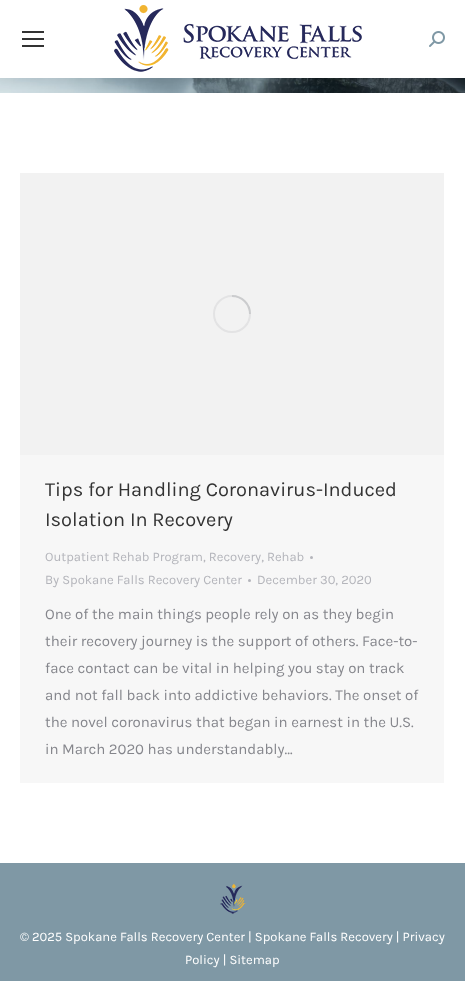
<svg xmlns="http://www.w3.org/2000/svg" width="465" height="981">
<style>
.a{font:20px Karla;fill:#333}
.b{font:13px Karla;fill:#b4b5bb}
.c{font:15px Karla;fill:#85868c}
.d{font:13px Karla;fill:#fff}
</style>
<rect width="100%" height="100%" fill="#fff"/>
<image href="3.png" x="0" y="78" width="465" height="15"/>
<path fill="#00000012" filter="blur(7.5px)" d="M-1 -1h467v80H-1z"/>
<path fill="#fff" d="M0 0h465v78H0z"/>
<path fill="#333" d="M22 31h22v2H22z"/>
<path fill="#333" d="M22 38h22v2H22z"/>
<path fill="#333" d="M22 45h22v2H22z"/>
<image href="1.png" x="114" y="5" width="248" height="67"/>
<image href="2.png" x="429" y="31" width="16" height="16"/>
<path fill="#f7f7f7" d="M20 455h424v328H20z"/>
<path fill="#f2f2f2" d="M20 173h424v282H20z"/>
<circle fill="none" stroke="#e3e3e4" stroke-width="2" cx="232" cy="314" r="18"/>
<path fill="none" stroke="#85868c40" stroke-width="2" d="M250 314c0-10-8-18-18-18"/>
<circle fill="#b4b5bb" cx="311.5" cy="557.5" r="1.5"/>
<circle fill="#b4b5bb" cx="249.5" cy="580.5" r="1.5"/>
<path fill="#7f98a5" d="M0 863h465v118H0z"/>
<image href="4.png" x="220" y="884" width="26" height="30"/>
<text class="a" x="45" y="496">Tips for Handling Coronavirus-Induced</text>
<text class="a" x="45" y="526">Isolation In Recovery</text>
<text class="b" x="45" y="561">Outpatient Rehab Program, Recovery, Rehab</text>
<text class="b" x="45" y="584">By Spokane Falls Recovery Center</text>
<text class="b" x="257" y="584">December 30, 2020</text>
<text class="c" x="45" y="619">One of the main things people rely on as they begin</text>
<text class="c" x="45" y="646">their recovery journey is the support of others. Face-to-</text>
<text class="c" x="45" y="673">face contact can be vital in helping you stay on track</text>
<text class="c" x="45" y="700">and not fall back into addictive behaviors. The onset of</text>
<text class="c" x="45" y="727">the novel coronavirus that began in earnest in the U.S.</text>
<text class="c" x="45" y="754">in March 2020 has understandably…</text>
<text class="d" x="20" y="941">© 2025 Spokane Falls Recovery Center | Spokane Falls Recovery | Privacy</text>
<text class="d" x="185" y="964">Policy | Sitemap</text>
</svg>
